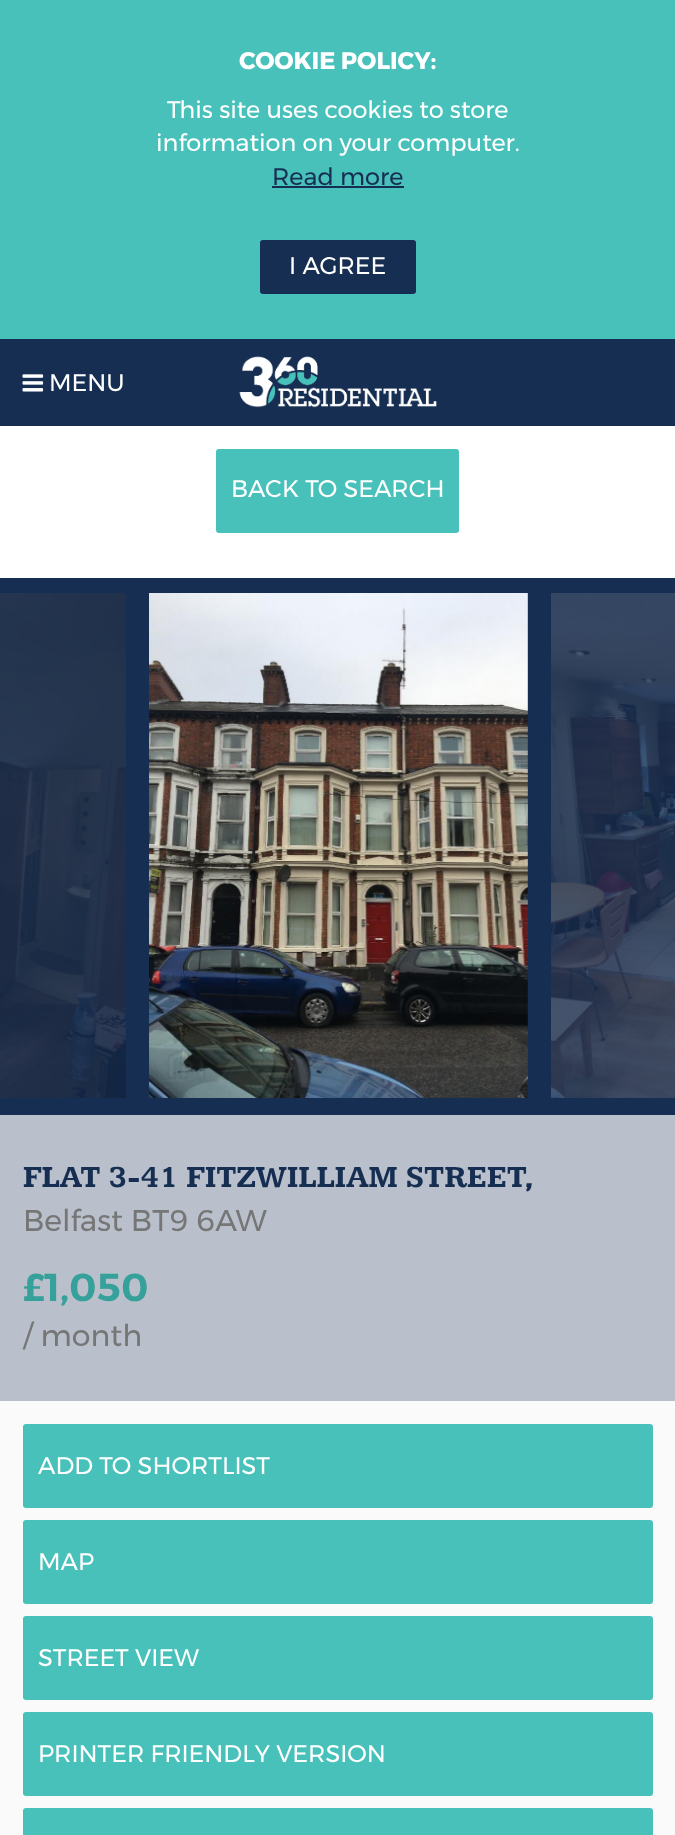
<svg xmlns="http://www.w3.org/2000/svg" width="675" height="1835">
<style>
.a{font:bold 24px Montserrat;fill:#fff}
.b{font:24px Montserrat;fill:#fff}
.c{font:24px Montserrat;fill:#162e52}
.d{font:bold 31.25px Kameron;fill:#162e52}
.e{font:30px Montserrat;fill:#767676}
.f{font:600 39px Montserrat;fill:#36a09b}
</style>
<rect width="100%" height="100%" fill="#fff"/>
<path fill="#48c1bb" d="M0 0h675v339H0z"/>
<path fill="#162e52" d="M272 186h132v2H272z"/>
<rect fill="#162e52" x="260" y="240" width="156" height="54" rx="3"/>
<path fill="#162e52" d="M0 339h675v87H0z"/>
<image href="1.png" x="22" y="374" width="22" height="18"/>
<image href="2.png" x="239" y="356" width="198" height="52"/>
<rect fill="#48c1bb" x="216" y="449" width="243" height="84" rx="3"/>
<path fill="#162e52" d="M0 578h675v537H0z"/>
<image href="3.png" x="0" y="593" width="126" height="505"/>
<image href="4.png" x="149" y="593" width="379" height="505"/>
<image href="5.png" x="551" y="593" width="124" height="505"/>
<path fill="#b9c0cb" d="M0 1115h675v286H0z"/>
<path fill="#fafafa" d="M0 1401h675v434H0z"/>
<rect fill="#48c1bb" x="23" y="1424" width="630" height="84" rx="3"/>
<rect fill="#48c1bb" x="23" y="1520" width="630" height="84" rx="3"/>
<rect fill="#48c1bb" x="23" y="1616" width="630" height="84" rx="3"/>
<rect fill="#48c1bb" x="23" y="1712" width="630" height="84" rx="3"/>
<rect fill="#48c1bb" x="23" y="1808" width="630" height="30" rx="3"/>
<text class="a" x="239" y="69">COOKIE POLICY:</text>
<text class="b" x="167" y="118">This site uses cookies to store</text>
<text class="b" x="156" y="151">information on your computer.</text>
<text class="c" x="272" y="185">Read more</text>
<text class="b" x="289" y="274">I AGREE</text>
<text class="b" x="49" y="391">MENU</text>
<text class="b" x="231" y="497">BACK TO SEARCH</text>
<text class="d" x="23" y="1187">FLAT 3-41 FITZWILLIAM STREET,</text>
<text class="e" x="23" y="1231">Belfast BT9 6AW</text>
<text class="f" x="23" y="1301">£1,050</text>
<text class="e" x="23" y="1346">/ month</text>
<text class="b" x="38" y="1474">ADD TO SHORTLIST</text>
<text class="b" x="38" y="1570">MAP</text>
<text class="b" x="38" y="1666">STREET VIEW</text>
<text class="b" x="38" y="1762">PRINTER FRIENDLY VERSION</text>
</svg>
